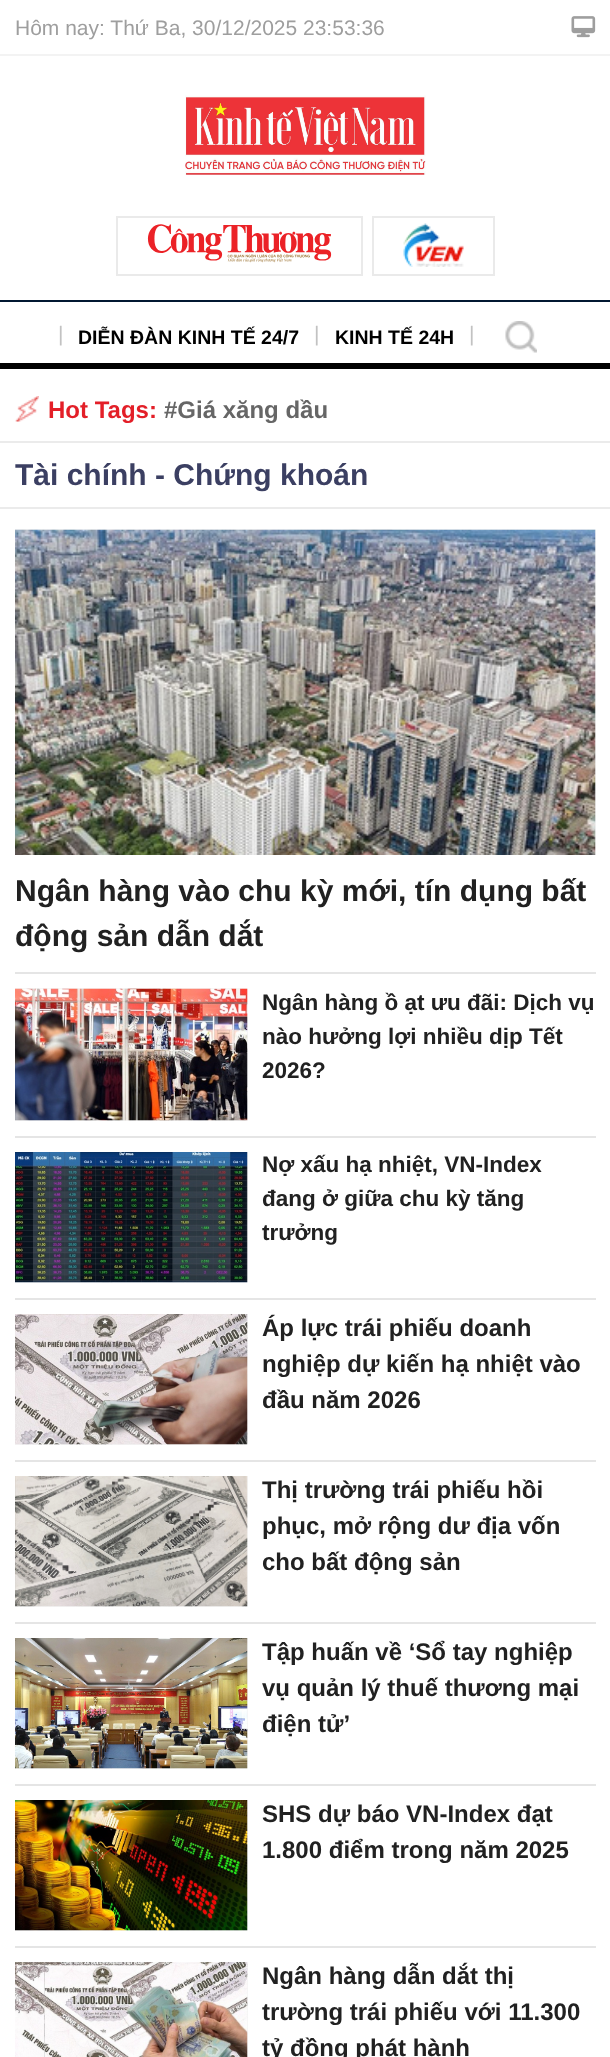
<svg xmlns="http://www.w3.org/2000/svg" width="610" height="2057">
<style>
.a{font:21px Liberation Sans;fill:#9e9e9e}
.b{font:21px Liberation Sans;fill:#c2c2c2}
.c{font:bold 19.5px Liberation Sans;fill:#000}
.d{font:bold 24px Liberation Sans;fill:#e31f28}
.e{font:bold 24px Liberation Sans;fill:#666}
.f{font:bold 30px Liberation Sans;fill:#3b3f62}
.g{font:bold 30px Liberation Sans;fill:#212121}
.h{font:bold 22.5px Liberation Sans;fill:#212121}
.i{font:bold 24px Liberation Sans;fill:#212121}
</style>
<rect width="100%" height="100%" fill="#fff"/>
<path fill="#f3f3f3" d="M0 54h610v2H0z"/>
<image href="1.png" x="571" y="16" width="25" height="22"/>
<image href="2.png" x="185" y="95" width="241" height="80"/>
<path fill="none" stroke="#eaeaea" stroke-width="2" d="M117 217h245v58H117z"/>
<image href="3.png" x="147" y="224" width="185" height="39"/>
<path fill="none" stroke="#eaeaea" stroke-width="2" d="M373 217h121v58H373z"/>
<image href="4.png" x="403" y="223" width="61" height="44"/>
<path fill="#011831" d="M0 300h610v2H0z"/>
<path fill="#000" d="M0 363h610v6H0z"/>
<image href="5.png" x="505" y="321" width="32" height="32"/>
<path fill="#ebebeb" d="M0 441h610v2H0z"/>
<image href="6.png" x="15" y="396" width="24" height="26"/>
<path fill="#ebebeb" d="M0 507h610v2H0z"/>
<path fill="#e5e5e5" d="M15 972h581v2H15z"/>
<image href="7.png" x="15" y="529" width="581" height="326"/>
<image href="8.png" x="15" y="529" width="581" height="326"/>
<path fill="#e5e5e5" d="M15 1136h581v2H15z"/>
<image href="9.png" x="15" y="988" width="233" height="133"/>
<image href="10.png" x="15" y="988" width="233" height="133"/>
<path fill="#e5e5e5" d="M15 1298h581v2H15z"/>
<image href="11.png" x="15" y="1152" width="233" height="131"/>
<image href="12.png" x="15" y="1152" width="233" height="131"/>
<path fill="#e5e5e5" d="M15 1460h581v2H15z"/>
<image href="11.png" x="15" y="1314" width="233" height="131"/>
<image href="13.png" x="15" y="1314" width="233" height="131"/>
<path fill="#e5e5e5" d="M15 1622h581v2H15z"/>
<image href="11.png" x="15" y="1476" width="233" height="131"/>
<image href="14.png" x="15" y="1476" width="233" height="131"/>
<path fill="#e5e5e5" d="M15 1784h581v2H15z"/>
<image href="11.png" x="15" y="1638" width="233" height="131"/>
<image href="15.png" x="15" y="1638" width="233" height="131"/>
<path fill="#e5e5e5" d="M15 1946h581v2H15z"/>
<image href="11.png" x="15" y="1800" width="233" height="131"/>
<image href="16.png" x="15" y="1800" width="233" height="131"/>
<image href="17.png" x="247" y="1962" width="1" height="95"/>
<image href="18.png" x="15" y="1962" width="233" height="95"/>
<text class="a" x="15" y="35">Hôm nay: Thứ Ba, 30/12/2025 23:53:36</text>
<text class="b" x="58" y="341">|</text>
<text class="c" x="78" y="344">DIỄN ĐÀN KINH TẾ 24/7</text>
<text class="b" x="314" y="341">|</text>
<text class="c" x="335" y="344">KINH TẾ 24H</text>
<text class="b" x="469" y="341">|</text>
<text class="d" x="48" y="418">Hot Tags:</text>
<text class="e" x="164" y="418">#Giá xăng dầu</text>
<text class="f" x="15" y="485">Tài chính - Chứng khoán</text>
<text class="g" x="15" y="901">Ngân hàng vào chu kỳ mới, tín dụng bất</text>
<text class="g" x="15" y="946">động sản dẫn dắt</text>
<text class="h" x="262" y="1010">Ngân hàng ồ ạt ưu đãi: Dịch vụ</text>
<text class="h" x="262" y="1044">nào hưởng lợi nhiều dịp Tết</text>
<text class="h" x="262" y="1078">2026?</text>
<text class="h" x="262" y="1172">Nợ xấu hạ nhiệt, VN-Index</text>
<text class="h" x="262" y="1206">đang ở giữa chu kỳ tăng</text>
<text class="h" x="262" y="1240">trưởng</text>
<text class="i" x="262" y="1336">Áp lực trái phiếu doanh</text>
<text class="i" x="262" y="1372">nghiệp dự kiến hạ nhiệt vào</text>
<text class="i" x="262" y="1408">đầu năm 2026</text>
<text class="i" x="262" y="1498">Thị trường trái phiếu hồi</text>
<text class="i" x="262" y="1534">phục, mở rộng dư địa vốn</text>
<text class="i" x="262" y="1570">cho bất động sản</text>
<text class="i" x="262" y="1660">Tập huấn về ‘Sổ tay nghiệp</text>
<text class="i" x="262" y="1696">vụ quản lý thuế thương mại</text>
<text class="i" x="262" y="1732">điện tử’</text>
<text class="i" x="262" y="1822">SHS dự báo VN-Index đạt</text>
<text class="i" x="262" y="1858">1.800 điểm trong năm 2025</text>
<text class="i" x="262" y="1984">Ngân hàng dẫn dắt thị</text>
<text class="i" x="262" y="2020">trường trái phiếu với 11.300</text>
<text class="i" x="262" y="2056">tỷ đồng phát hành</text>
</svg>
